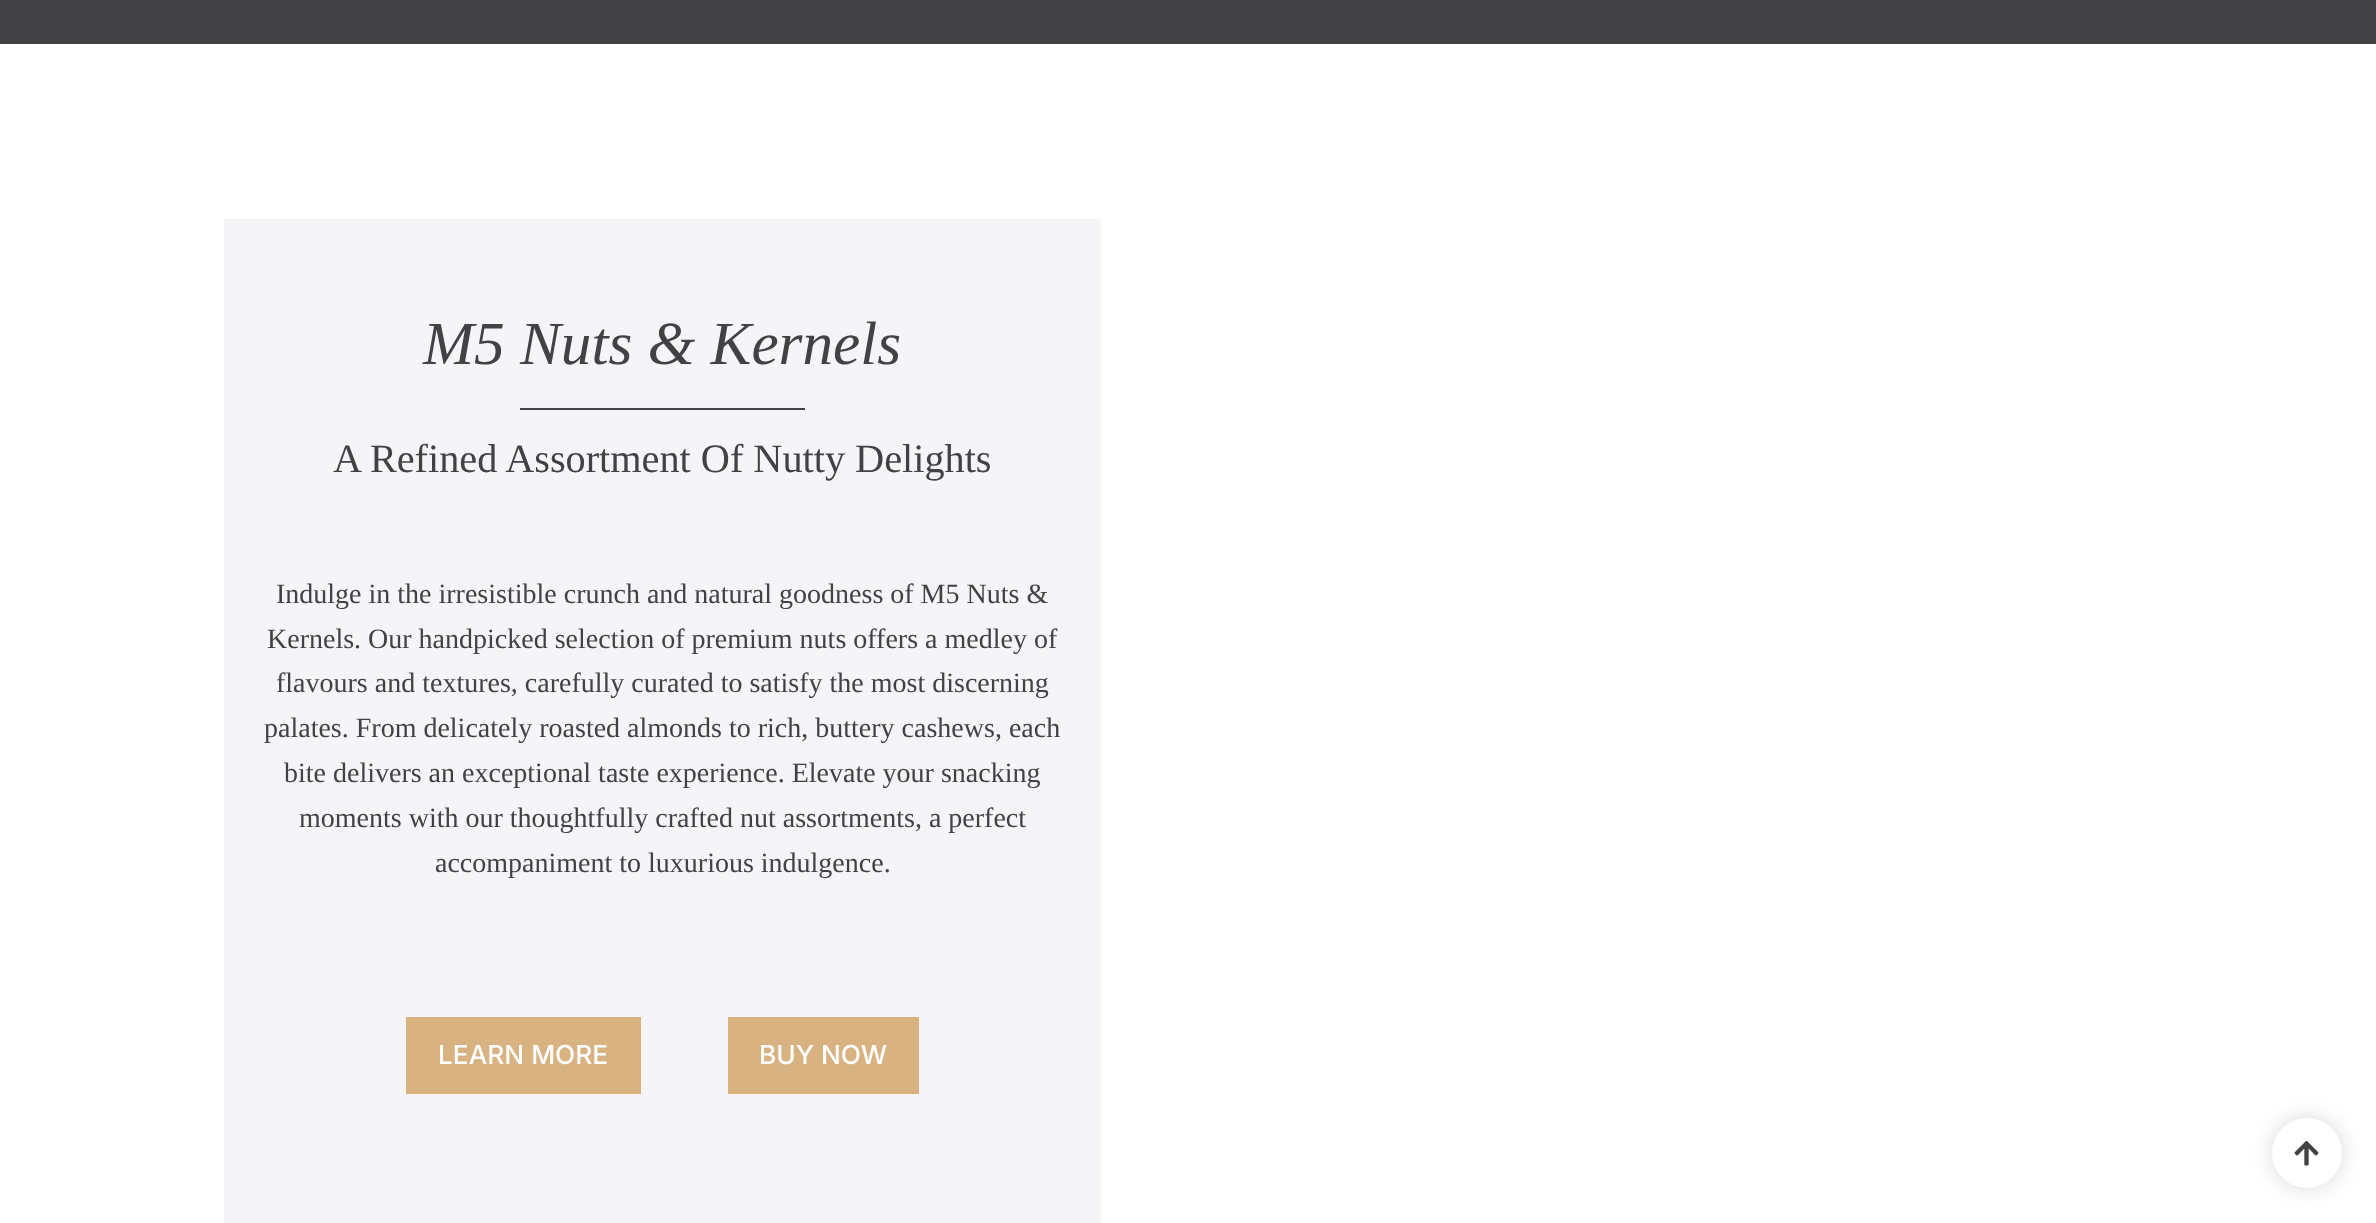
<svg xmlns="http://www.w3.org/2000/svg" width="2376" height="1223">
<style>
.a{font:italic 61.25px Tinos;fill:#424245}
.b{font:40.25px Tinos;fill:#424245}
.c{font:28px Tinos;fill:#424245}
.d{font:500 26.25px Inter;fill:#fff}
</style>
<rect width="100%" height="100%" fill="#fff"/>
<path fill="#424245" d="M0 0h2376v44H0z"/>
<path fill="#f5f5f7" d="M224 219h877v1004H224z"/>
<path fill="#424245" d="M520 408h285v2H520z"/>
<path fill="#d8b280" d="M406 1017h235v77H406z"/>
<path fill="#d8b280" d="M728 1017h191v77H728z"/>
<rect fill="#00000026" filter="blur(10.5px)" x="2272" y="1118" width="70" height="70" rx="35"/>
<circle fill="#fff" cx="2307" cy="1153" r="35"/>
<image href="1.png" x="2294" y="1141" width="25" height="25"/>
<text class="a" x="423" y="364">M5 Nuts &amp; Kernels</text>
<text class="b" x="333" y="472">A Refined Assortment Of Nutty Delights</text>
<text class="c" x="276" y="603">Indulge in the irresistible crunch and natural goodness of M5 Nuts &amp;</text>
<text class="c" x="267" y="648">Kernels. Our handpicked selection of premium nuts offers a medley of</text>
<text class="c" x="276" y="692">flavours and textures, carefully curated to satisfy the most discerning</text>
<text class="c" x="264" y="737">palates. From delicately roasted almonds to rich, buttery cashews, each</text>
<text class="c" x="284" y="782">bite delivers an exceptional taste experience. Elevate your snacking</text>
<text class="c" x="299" y="827">moments with our thoughtfully crafted nut assortments, a perfect</text>
<text class="c" x="435" y="872">accompaniment to luxurious indulgence.</text>
<text class="d" x="438" y="1064">LEARN MORE</text>
<text class="d" x="759" y="1064">BUY NOW</text>
</svg>
